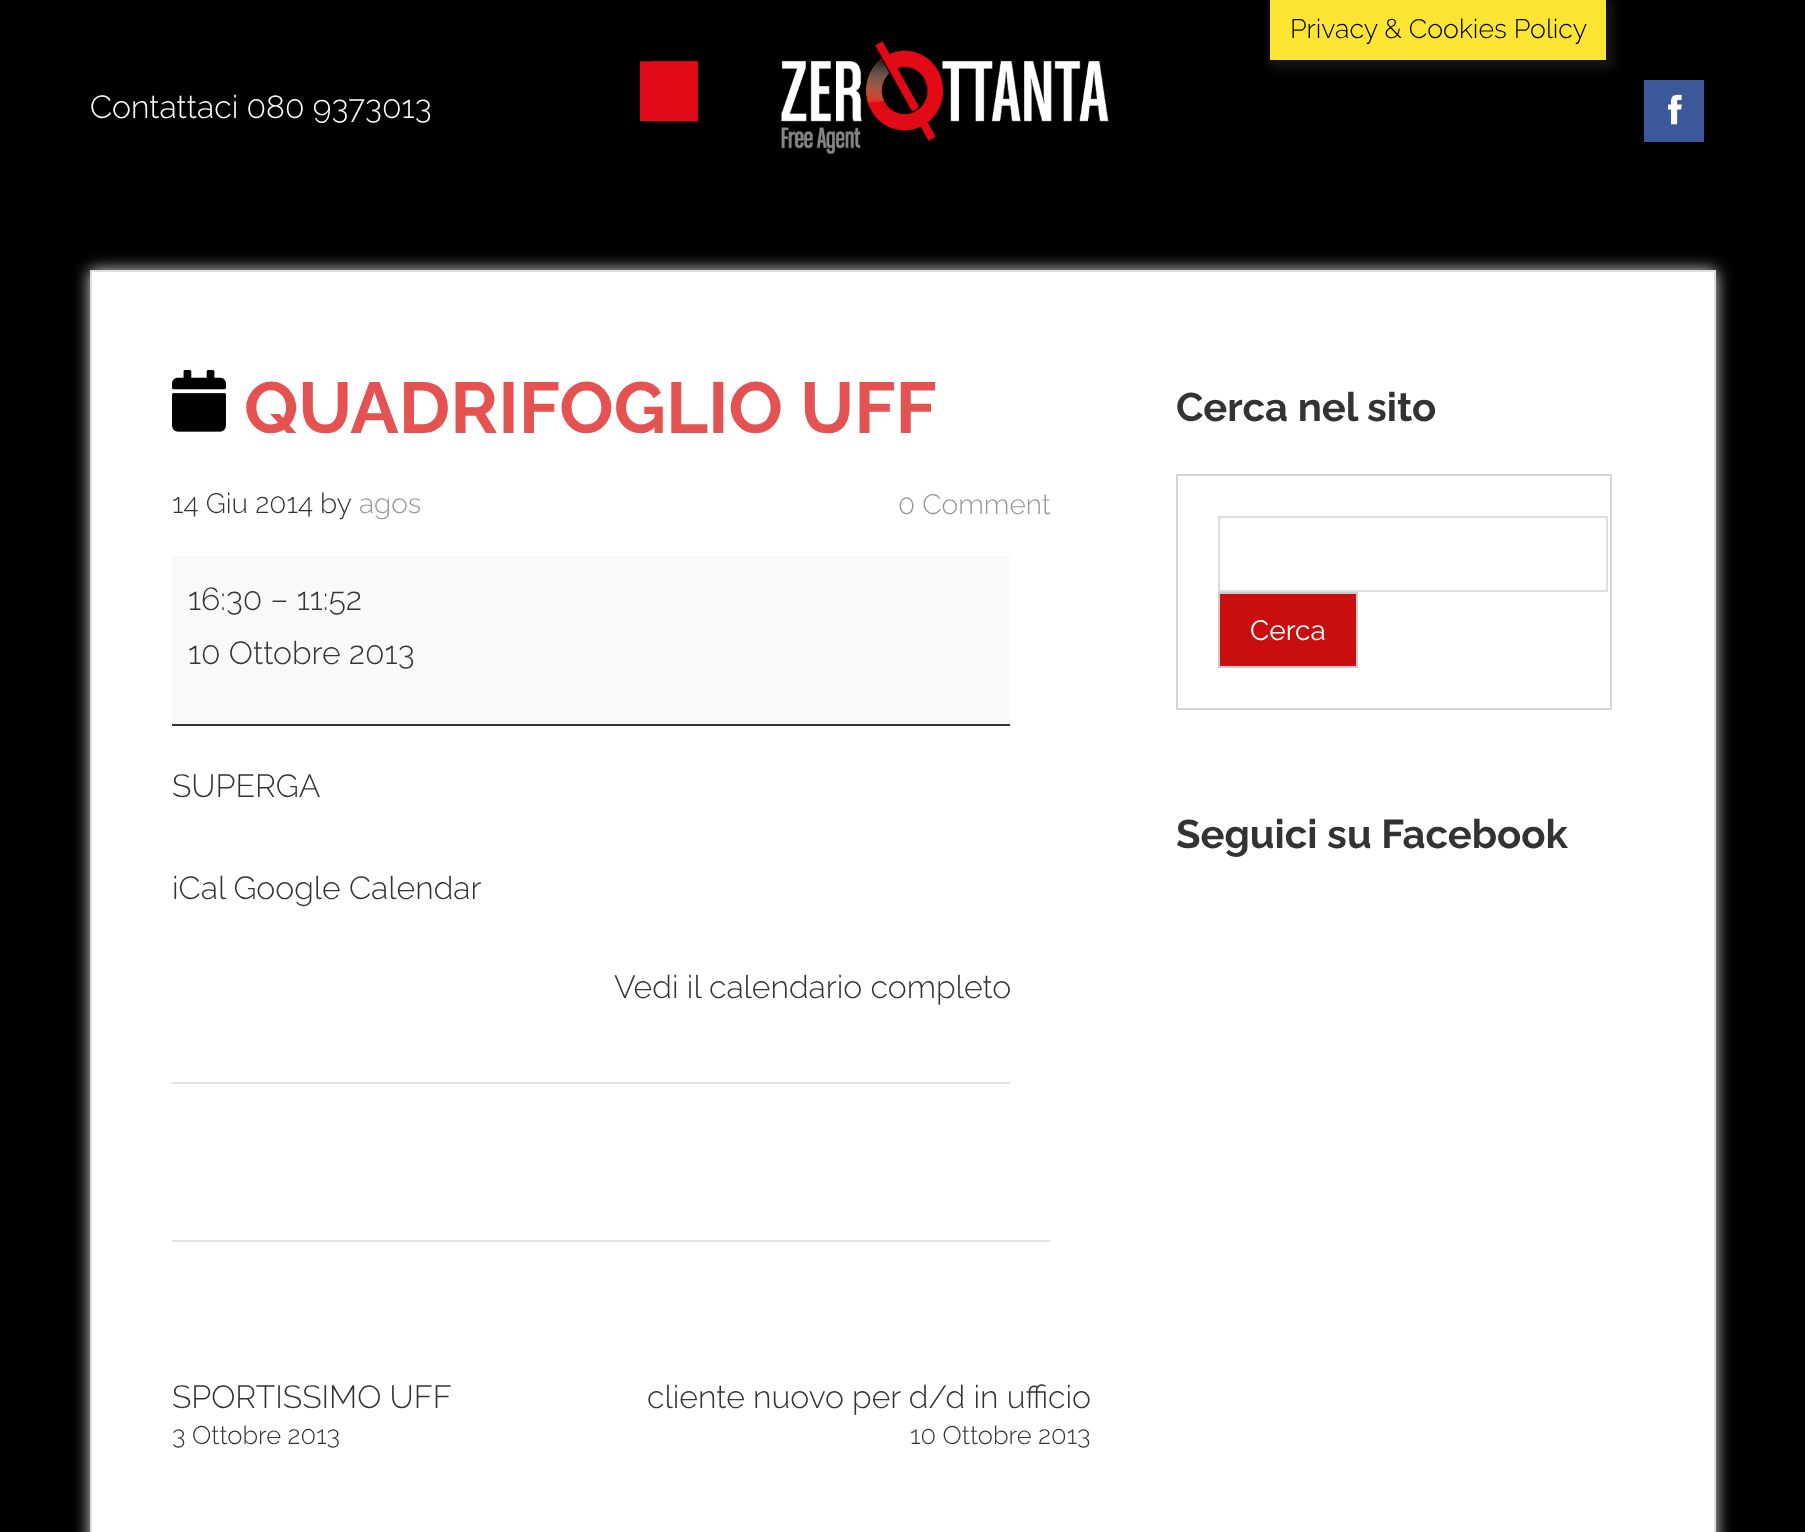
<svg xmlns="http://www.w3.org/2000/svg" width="1805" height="1532">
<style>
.a{font:300 26.75px Raleway;fill:#000}
.b{font:300 32px Raleway;fill:#fff}
.c{font:bold 72px Raleway;fill:#e55252}
.d{font:300 28px Raleway;fill:#333}
.e{font:300 28px Raleway;fill:#989696}
.f{font:300 32px Raleway;fill:#333}
.g{font:300 25.5px Raleway;fill:#333}
.h{font:bold 40px Raleway;fill:#333}
.i{font:28px Raleway;fill:#fff}
</style>
<rect width="100%" height="100%" fill="#000"/>
<path fill="#161616" filter="blur(5px)" d="M1270 0h344v68H1270z"/>
<path fill="#fce432" d="M1270 0h336v60H1270z"/>
<image href="1.png" x="640" y="41" width="469" height="113"/>
<path fill="#3b5998" d="M1644 80h60v62H1644z"/>
<image href="2.png" x="1668" y="94" width="14" height="31"/>
<path fill="#ddd" filter="blur(8px)" d="M90 270h1626v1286H90z"/>
<path fill="#fff" stroke="#ddd" stroke-width="2" d="M91 271h1624v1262H91z"/>
<path fill="#e3e3e3" d="M172 1240h878v2H172z"/>
<image href="3.png" x="172" y="370" width="54" height="62"/>
<path fill="#e3e3e3" d="M172 1082h838v2H172z"/>
<path fill="#f9f9f9" d="M172 556h838v168H172z"/>
<path fill="#333" d="M172 724h838v2H172z"/>
<path fill="none" stroke="#d5d6d7" stroke-width="2" d="M1177 475h434v234H1177z"/>
<path fill="none" stroke="#ddd" stroke-width="2" d="M1219 517h388v74H1219z"/>
<path fill="#c80e0e" stroke="#ccc" stroke-width="2" d="M1219 593h138v74H1219z"/>
<text class="a" x="1290" y="38">Privacy &amp; Cookies Policy</text>
<text class="b" x="90" y="118">Contattaci 080 9373013</text>
<text class="c" x="244" y="433">QUADRIFOGLIO UFF</text>
<text class="d" x="172" y="513">14 Giu 2014 by</text>
<text class="e" x="359" y="513">agos</text>
<text class="e" x="898" y="514">0 Comment</text>
<text class="f" x="188" y="610">16:30 – 11:52</text>
<text class="f" x="188" y="664">10 Ottobre 2013</text>
<text class="f" x="172" y="797">SUPERGA</text>
<text class="f" x="172" y="899">iCal Google Calendar</text>
<text class="f" x="614" y="998">Vedi il calendario completo</text>
<text class="f" x="172" y="1408">SPORTISSIMO UFF</text>
<text class="g" x="172" y="1444">3 Ottobre 2013</text>
<text class="f" x="647" y="1408">cliente nuovo per d/d in ufficio</text>
<text class="g" x="910" y="1444">10 Ottobre 2013</text>
<text class="h" x="1176" y="421">Cerca nel sito</text>
<text class="i" x="1250" y="640">Cerca</text>
<text class="h" x="1176" y="848">Seguici su Facebook</text>
</svg>
